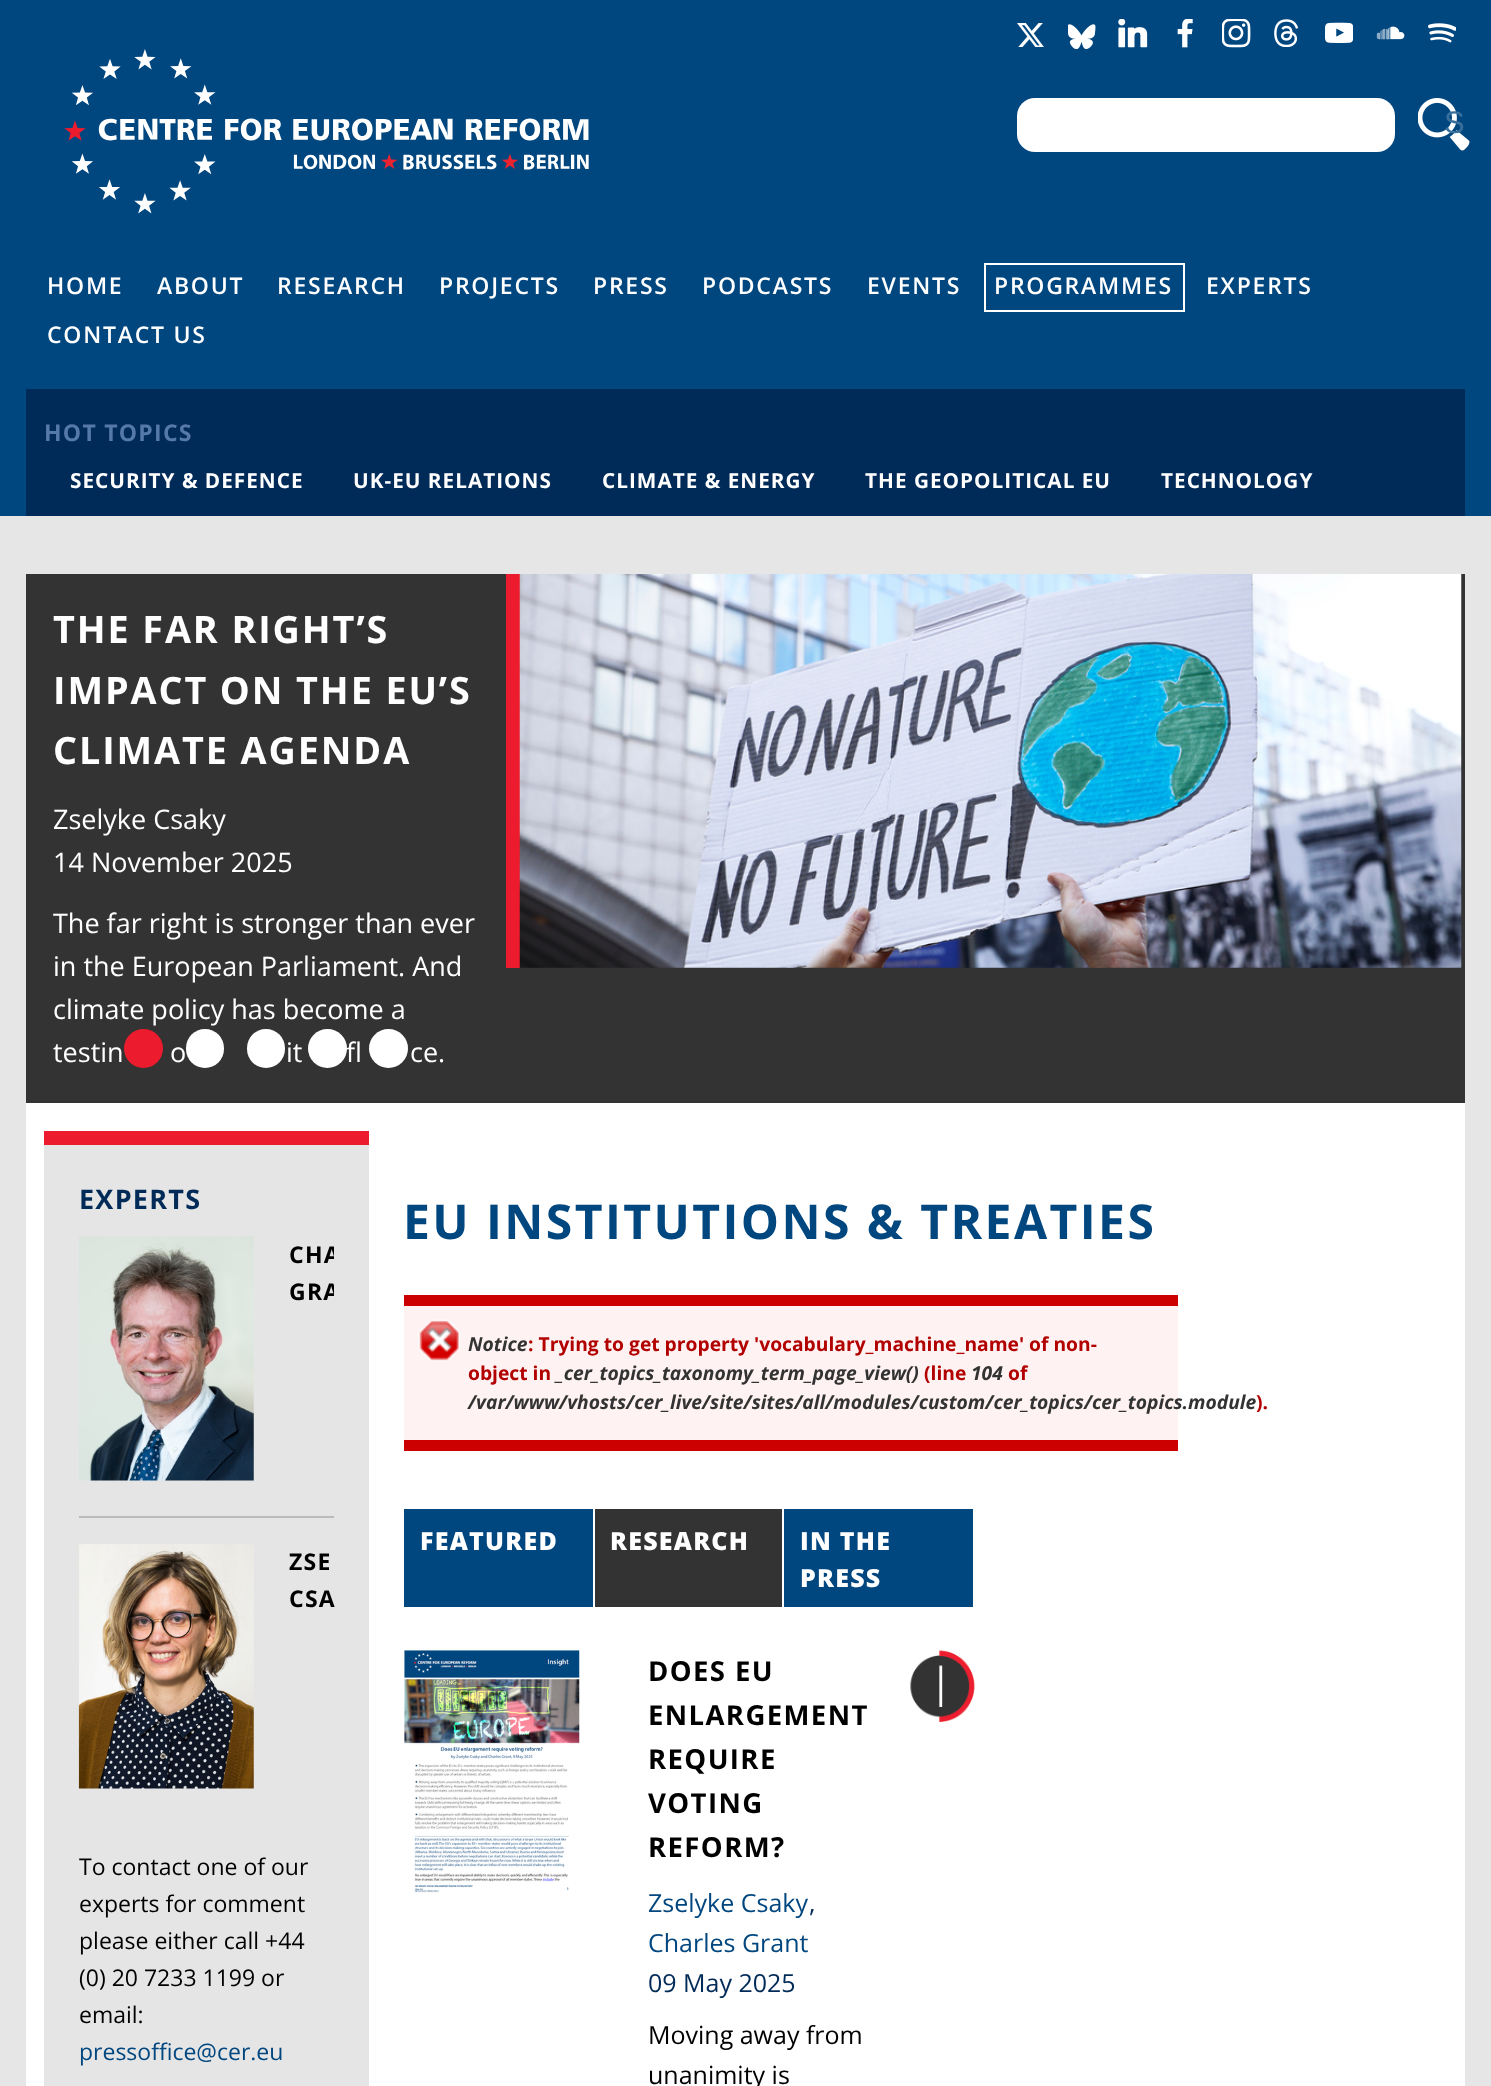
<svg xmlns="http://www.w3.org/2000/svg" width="1491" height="2086">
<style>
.a{font:31px Liberation Sans;fill:#386f9b}
.b{font:600 23px Open Sans;letter-spacing:1.75px;fill:#fff}
.c{font:bold 23px Open Sans;letter-spacing:1.25px;fill:#5579a8}
.d{font:bold 20.75px Open Sans;letter-spacing:1px;fill:#fff}
.e{font:bold 37.75px Open Sans;letter-spacing:1.9px;fill:#fff}
.f{font:27px Open Sans;fill:#fff}
.g{font:bold 27px Open Sans;letter-spacing:1.25px;fill:#002a57}
.h{font:bold 23px Open Sans;letter-spacing:1.25px;fill:#000}
.i{font:23px Open Sans;fill:#000}
.j{font:23px Open Sans;fill:#00467f}
.k{font:bold 48.1px Open Sans;letter-spacing:2.4px;fill:#00467f}
.l{font:italic bold 19.25px Open Sans;fill:#333}
.m{font:bold 19.25px Open Sans;fill:#b20000}
.n{font:800 25px Open Sans;letter-spacing:1.25px;fill:#fff}
.o{font:bold 27.5px Open Sans;letter-spacing:1.4px;fill:#000}
.p{font:25px Open Sans;fill:#00467f}
.q{font:25px Open Sans;fill:#002a57}
.r{font:25px Open Sans;fill:#000}
</style>
<defs>
<clipPath id="clip1"><path d="M79 1236h255v280H79z"/></clipPath>
</defs>
<rect width="100%" height="100%" fill="#e6e6e6"/>
<path fill="#00467f" d="M0 0h1491v516H0z"/>
<image href="1.png" x="1017" y="23" width="27" height="24"/>
<image href="2.png" x="1068" y="24" width="28" height="25"/>
<image href="3.png" x="1118" y="19" width="30" height="29"/>
<image href="4.png" x="1177" y="19" width="16" height="29"/>
<image href="5.png" x="1222" y="19" width="29" height="29"/>
<image href="6.png" x="1274" y="19" width="25" height="28"/>
<image href="7.png" x="1325" y="22" width="28" height="21"/>
<image href="8.png" x="1376" y="26" width="29" height="14"/>
<image href="9.png" x="1428" y="23" width="28" height="20"/>
<image href="10.png" x="64" y="49" width="525" height="165"/>
<rect fill="#fff" x="1017" y="98" width="378" height="54" rx="18"/>
<image href="11.png" x="1418" y="98" width="52" height="53"/>
<path fill="none" stroke="#fff" stroke-width="2" d="M985 264h199v47H985z"/>
<path fill="#002a57" d="M26 389h1439v127H26z"/>
<path fill="#fff" d="M26 1103h1439v983H26z"/>
<path fill="#333" d="M26 574h1439v529H26z"/>
<path fill="#ed1b2e" d="M506 574h14v394H506z"/>
<image href="12.png" x="519" y="574" width="943" height="394"/>
<circle fill="#ed1b2e" cx="143.5" cy="1048.5" r="19.5"/>
<rect fill="#fff" x="186" y="1029" width="38" height="39" rx="19"/>
<rect fill="#fff" x="247" y="1029" width="38" height="39" rx="19"/>
<circle fill="#fff" cx="327.5" cy="1048.5" r="19.5"/>
<circle fill="#fff" cx="388.5" cy="1048.5" r="19.5"/>
<path fill="#e5e5e5" d="M44 1145h325v941H44z"/>
<path fill="#ed1b2e" d="M44 1131h325v14H44z"/>
<path fill="#bbb" d="M79 1516h255v2H79z"/>
<image href="13.png" x="79" y="1236" width="175" height="245"/>
<image href="14.png" x="78" y="1544" width="176" height="245"/>
<path fill="#fff2f2" d="M404 1306h774v134H404z"/>
<image href="15.png" x="418" y="1319" width="42" height="43"/>
<path fill="#c00" d="M404 1295h774v11H404z"/>
<path fill="#c00" d="M404 1440h774v11H404z"/>
<path fill="#00467f" d="M404 1509h189v98H404z"/>
<path fill="#333" d="M595 1509h187v98H595z"/>
<path fill="#00467f" d="M784 1509h189v98H784z"/>
<image href="16.png" x="910" y="1650" width="65" height="72"/>
<image href="17.png" x="404" y="1650" width="176" height="243"/>
<text class="a" x="1444" y="133">S</text>
<text class="b" x="47" y="294">HOME</text>
<text class="b" x="157" y="294">ABOUT</text>
<text class="b" x="277" y="294">RESEARCH</text>
<text class="b" x="439" y="294">PROJECTS</text>
<text class="b" x="593" y="294">PRESS</text>
<text class="b" x="702" y="294">PODCASTS</text>
<text class="b" x="867" y="294">EVENTS</text>
<text class="b" x="994" y="294">PROGRAMMES</text>
<text class="b" x="1206" y="294">EXPERTS</text>
<text class="b" x="47" y="343">CONTACT US</text>
<text class="c" x="44" y="441">HOT TOPICS</text>
<text class="d" x="70" y="488">SECURITY &amp; DEFENCE</text>
<text class="d" x="353" y="488">UK-EU RELATIONS</text>
<text class="d" x="602" y="488">CLIMATE &amp; ENERGY</text>
<text class="d" x="865" y="488">THE GEOPOLITICAL EU</text>
<text class="d" x="1161" y="488">TECHNOLOGY</text>
<text class="e" x="53" y="643">THE FAR RIGHT’S</text>
<text class="e" x="53" y="704">IMPACT ON THE EU’S</text>
<text class="e" x="53" y="764">CLIMATE AGENDA</text>
<text class="f" x="53" y="829">Zselyke Csaky</text>
<text class="f" x="53" y="872">14 November 2025</text>
<text class="f" x="53" y="933">The far right is stronger than ever</text>
<text class="f" x="53" y="976">in the European Parliament. And</text>
<text class="f" x="53" y="1019">climate policy has become a</text>
<text class="f" x="53" y="1062">testin</text>
<text class="f" x="170" y="1062">o</text>
<text class="f" x="286" y="1062">it</text>
<text class="f" x="346" y="1062">fl</text>
<text class="f" x="410" y="1062">ce.</text>
<text class="g" x="79" y="1209">EXPERTS</text>
<g clip-path="url(#clip1)">
<text class="h" x="289" y="1263">CHA</text>
<text class="h" x="289" y="1300">GRA</text>
</g>
<text class="h" x="289" y="1570">ZSE</text>
<text class="h" x="289" y="1607">CSA</text>
<text class="i" x="79" y="1875">To contact one of our</text>
<text class="i" x="79" y="1912">experts for comment</text>
<text class="i" x="79" y="1949">please either call +44</text>
<text class="i" x="79" y="1986">(0) 20 7233 1199 or</text>
<text class="i" x="79" y="2023">email:</text>
<text class="j" x="79" y="2060">pressoffice@cer.eu</text>
<text class="k" x="403" y="1239">EU INSTITUTIONS &amp; TREATIES</text>
<text class="l" x="468" y="1351">Notice</text>
<text class="m" x="528" y="1351">: Trying to get property 'vocabulary_machine_name' of non-</text>
<text class="m" x="468" y="1380">object in</text>
<text class="l" x="556" y="1380">_cer_topics_taxonomy_term_page_view()</text>
<text class="m" x="924" y="1380">(line</text>
<text class="l" x="971" y="1380">104</text>
<text class="m" x="1008" y="1380">of</text>
<text class="l" x="468" y="1409">/var/www/vhosts/cer_live/site/sites/all/modules/custom/cer_topics/cer_topics.module</text>
<text class="m" x="1256" y="1409">).</text>
<text class="n" x="420" y="1550">FEATURED</text>
<text class="n" x="610" y="1550">RESEARCH</text>
<text class="n" x="800" y="1550">IN THE</text>
<text class="n" x="800" y="1587">PRESS</text>
<text class="o" x="648" y="1681">DOES EU</text>
<text class="o" x="648" y="1725">ENLARGEMENT</text>
<text class="o" x="648" y="1769">REQUIRE</text>
<text class="o" x="648" y="1813">VOTING</text>
<text class="o" x="648" y="1857">REFORM?</text>
<text class="p" x="648" y="1912">Zselyke Csaky</text>
<text class="q" x="809" y="1912">,</text>
<text class="p" x="648" y="1952">Charles Grant</text>
<text class="q" x="648" y="1992">09 May 2025</text>
<text class="r" x="648" y="2044">Moving away from</text>
<text class="r" x="648" y="2084">unanimity is</text>
</svg>
